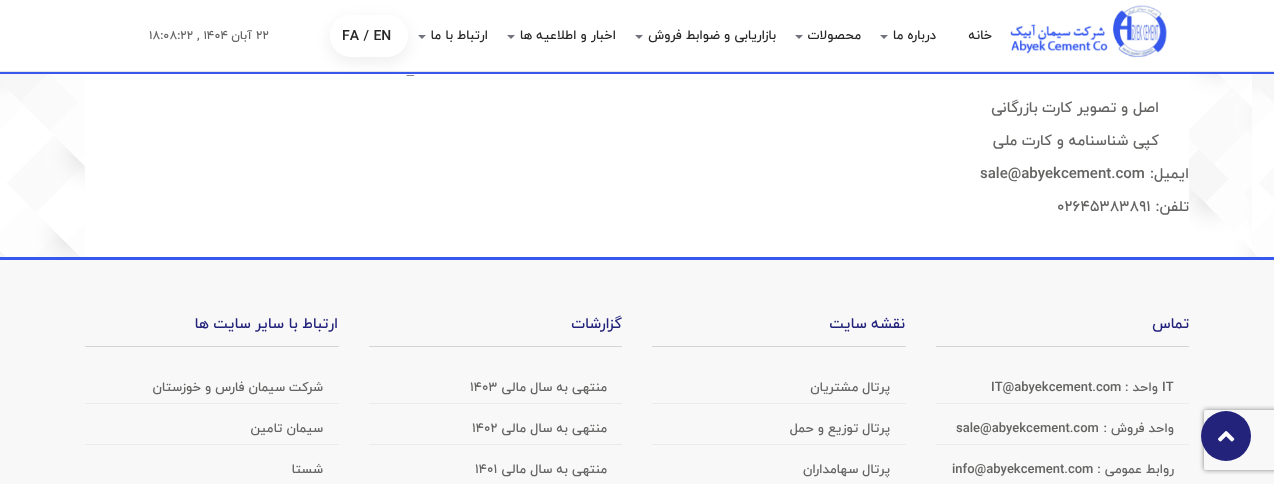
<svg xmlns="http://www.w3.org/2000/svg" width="1274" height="484">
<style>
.a{font:500 13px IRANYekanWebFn;direction:rtl;fill:#272727}
.b{font:bold 14px IRANYekanWebFn;fill:#272727}
.c{font:500 12px IRANYekanWebFn;fill:#636362}
.d{font:500 12px IRANYekanWebFn;direction:rtl;fill:#636362}
.e{font:15px Liberation Serif;direction:rtl;fill:#636362}
.f{font:500 15px IRANYekanWebFn;direction:rtl;fill:#636362}
.g{font:500 15px IRANYekanWebFn;fill:#636362}
.h{font:500 15px IRANYekanWebFn;direction:rtl;fill:#23237c}
.i{font:500 13px IRANYekanWebFn;fill:#636362}
.j{font:500 13px IRANYekanWebFn;direction:rtl;fill:#636362}
</style>
<defs>
<clipPath id="clip1"><path d="M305 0h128v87h-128zm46 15h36c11.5 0 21 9.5 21 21c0 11.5-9.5 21-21 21h-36c-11.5 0-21-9.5-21-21c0-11.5 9.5-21 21-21z" clip-rule="evenodd"/></clipPath>
<clipPath id="clip2"><path d="M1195 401h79v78h-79zm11 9h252c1 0 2 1 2 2v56c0 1-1 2-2 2h-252c-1 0-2-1-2-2v-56c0-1 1-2 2-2z" clip-rule="evenodd"/></clipPath>
</defs>
<rect width="100%" height="100%" fill="#fff"/>
<path fill="#3658ed" d="M0 72h1274v2H0z"/>
<path fill="#e6e6e6" d="M0 71h1274v1H0z"/>
<image href="1.png" x="1010" y="5" width="157" height="53"/>
<path fill="#71737d" d="M880 35h8l-4 4z"/>
<path fill="#71737d" d="M795 35h8l-4 4z"/>
<path fill="#71737d" d="M635 35h8l-4 4z"/>
<path fill="#71737d" d="M507 35h8l-4 4z"/>
<path fill="#71737d" d="M418 35h8l-4 4z"/>
<image href="2.png" x="0" y="74" width="1274" height="183"/>
<path fill="#fff" d="M85 74h1104v183H85z"/>
<g clip-path="url(#clip1)">
<rect fill="#00000012" filter="blur(8px)" x="330" y="20" width="78" height="42" rx="21"/>
</g>
<path fill="#f8f8f8" d="M0 260h1274v224H0z"/>
<g clip-path="url(#clip2)">
<rect fill="#808080" filter="blur(2.5px)" x="1204" y="410" width="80" height="60" rx="2"/>
</g>
<circle fill="#23237c" cx="1226" cy="436" r="25"/>
<image href="3.png" x="1218" y="431" width="17" height="11"/>
<path fill="#3658ed" d="M0 257h1274v3H0z"/>
<path fill="#d5d5d5" d="M936 346h253v1H936z"/>
<path fill="#ecebea" d="M936 403h253v1H936z"/>
<path fill="#ecebea" d="M936 444h253v1H936z"/>
<path fill="#d5d5d5" d="M652 346h254v1H652z"/>
<path fill="#ecebea" d="M652 403h254v1H652z"/>
<path fill="#ecebea" d="M652 444h254v1H652z"/>
<path fill="#d5d5d5" d="M369 346h253v1H369z"/>
<path fill="#ecebea" d="M369 403h253v1H369z"/>
<path fill="#ecebea" d="M369 444h253v1H369z"/>
<path fill="#d5d5d5" d="M85 346h254v1H85z"/>
<path fill="#ecebea" d="M85 403h254v1H85z"/>
<path fill="#ecebea" d="M85 444h254v1H85z"/>
<text class="a" x="992" y="39">خانه</text>
<text class="a" x="936" y="39">درباره ما</text>
<text class="a" x="861" y="39">محصولات</text>
<text class="a" x="776" y="39">بازاریابی و ضوابط فروش</text>
<text class="a" x="616" y="39">اخبار و اطلاعیه ها</text>
<text class="a" x="488" y="39">ارتباط با ما</text>
<text class="b" x="342" y="40">FA / EN</text>
<text class="c" x="256" y="39">۲۲</text>
<text class="d" x="252" y="39">آبان</text>
<text class="c" x="149" y="39">۱۸:۰۸:۲۲ , ۱۴۰۴</text>
<text class="e" x="414" y="79">–</text>
<text class="f" x="1159" y="112">اصل و تصویر کارت بازرگانی</text>
<text class="f" x="1159" y="145">کپی شناسنامه و کارت ملی</text>
<text class="f" x="1189" y="178">ایمیل:</text>
<text class="g" x="980" y="178">sale@abyekcement.com</text>
<text class="f" x="1189" y="211">تلفن:</text>
<text class="g" x="1057" y="211">۰۲۶۴۵۳۸۳۸۹۱</text>
<text class="h" x="1189" y="328">تماس</text>
<text class="i" x="1162" y="391">IT</text>
<text class="j" x="1158" y="391">واحد :</text>
<text class="i" x="991" y="391">IT@abyekcement.com</text>
<text class="j" x="1174" y="432">واحد فروش :</text>
<text class="i" x="956" y="432">sale@abyekcement.com</text>
<text class="j" x="1174" y="473">روابط عمومی :</text>
<text class="i" x="952" y="473">info@abyekcement.com</text>
<text class="h" x="905" y="328">نقشه سایت</text>
<text class="j" x="890" y="391">پرتال مشتریان</text>
<text class="j" x="890" y="432">پرتال توزیع و حمل</text>
<text class="j" x="890" y="473">پرتال سهامداران</text>
<text class="h" x="622" y="328">گزارشات</text>
<text class="j" x="607" y="391">منتهی به سال مالی</text>
<text class="i" x="470" y="391">۱۴۰۳</text>
<text class="j" x="607" y="432">منتهی به سال مالی</text>
<text class="i" x="472" y="432">۱۴۰۲</text>
<text class="j" x="607" y="473">منتهی به سال مالی</text>
<text class="i" x="475" y="473">۱۴۰۱</text>
<text class="h" x="338" y="328">ارتباط با سایر سایت ها</text>
<text class="j" x="323" y="391">شرکت سیمان فارس و خوزستان</text>
<text class="j" x="323" y="432">سیمان تامین</text>
<text class="j" x="323" y="473">شستا</text>
</svg>
